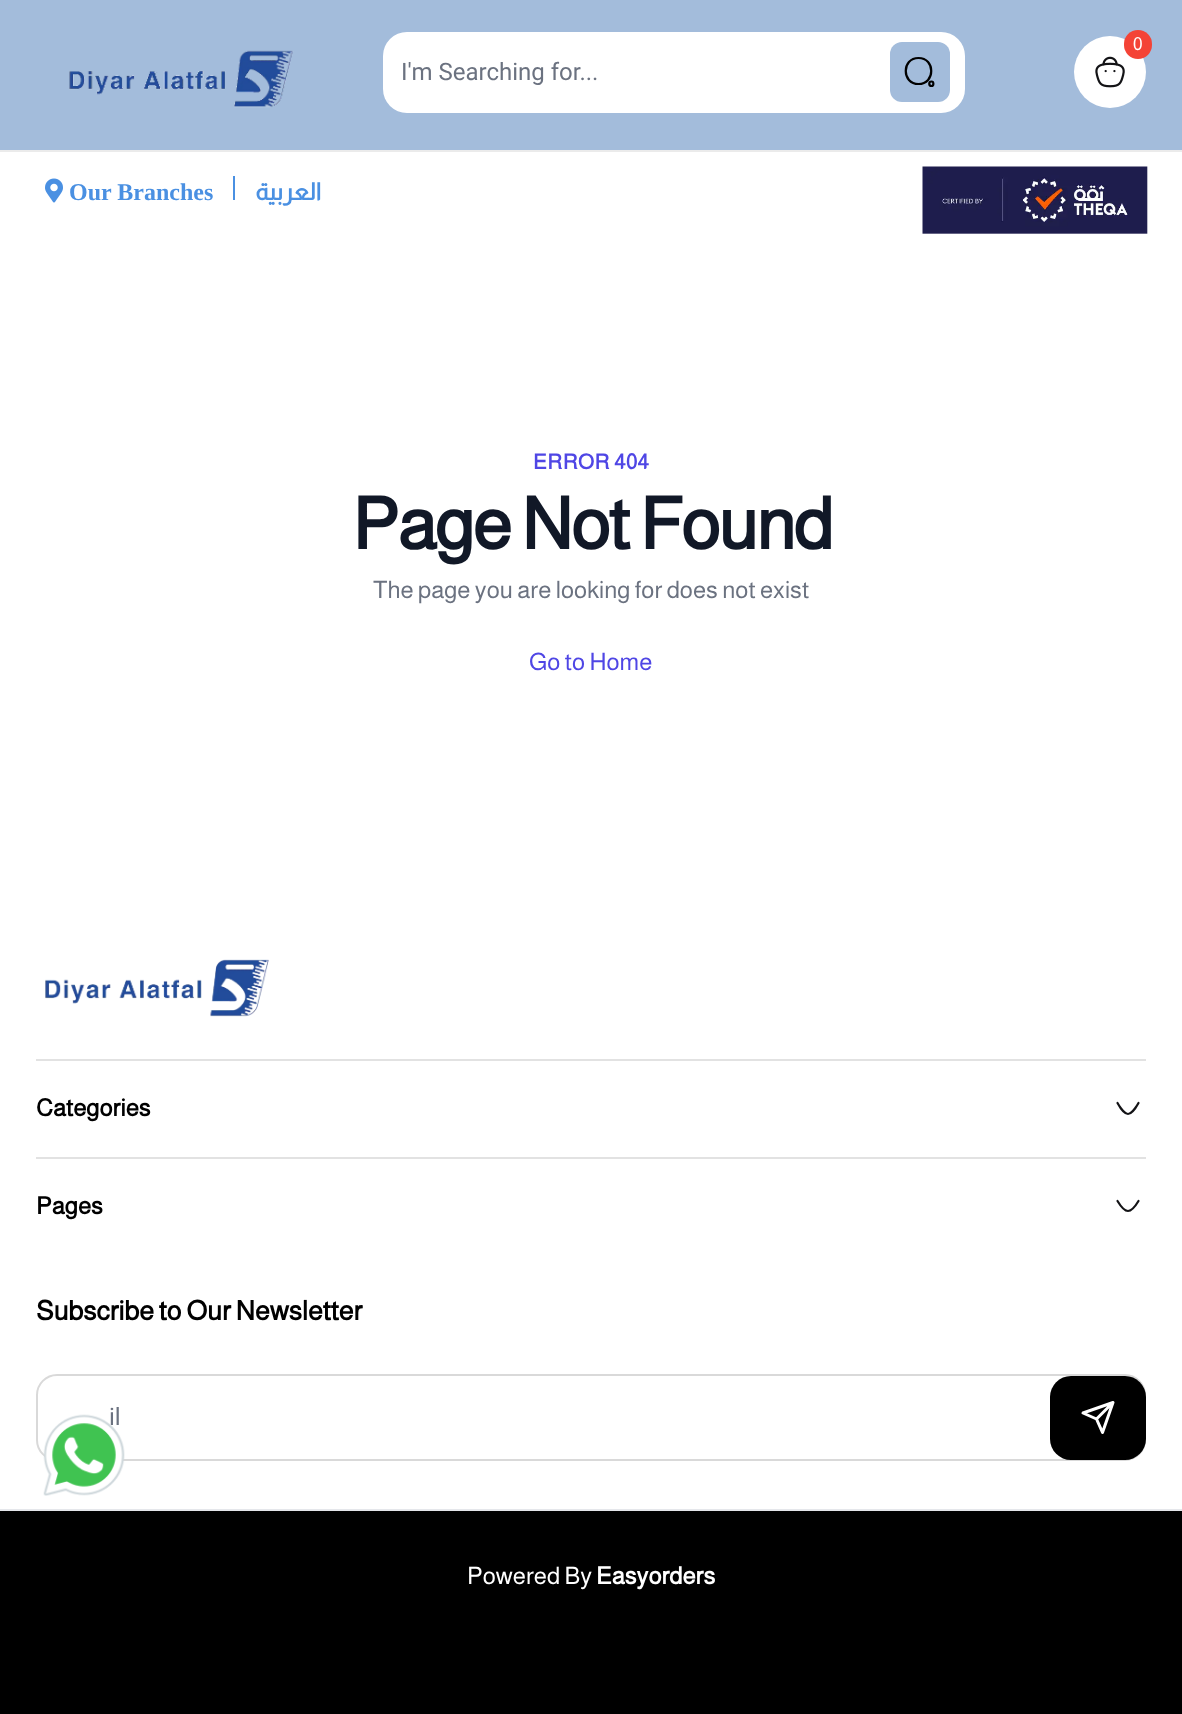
<svg xmlns="http://www.w3.org/2000/svg" width="1182" height="1714">
<style>
.a{font:18px Almarai;fill:#fff}
.b{font:24px Roboto;fill:#6b7280}
.c{font:bold 24px Liberation Serif;fill:#4a90e2}
.d{font:bold 24px Almarai;direction:rtl;fill:#4a90e2}
.e{font:bold 21px Almarai;letter-spacing:0.5px;fill:#4f46e5}
.f{font:bold 72px Almarai;letter-spacing:-1.75px;fill:#111827}
.g{font:24px Almarai;fill:#6b7280}
.h{font:24px Almarai;fill:#4f46e5}
.i{font:bold 24px Almarai;fill:#000}
.j{font:bold 27px Almarai;fill:#000}
.k{font:24px Almarai;fill:#fff}
.l{font:bold 24px Almarai;fill:#fff}
</style>
<rect width="100%" height="100%" fill="#fff"/>
<path fill="#ebebeb" d="M0 150h1182v2H0z"/>
<path fill="#a3bcdb" d="M0 0h1182v150H0z"/>
<circle fill="#fff" cx="1110" cy="72" r="36"/>
<image href="1.png" x="1095" y="56" width="30" height="32"/>
<rect fill="#f44336" x="1124" y="30" width="28" height="29" rx="14"/>
<image href="2.png" x="69" y="50" width="225" height="58"/>
<rect fill="#fff" x="383" y="32" width="582" height="81" rx="24"/>
<rect fill="#a3bcdb" x="890" y="42" width="60" height="60" rx="12"/>
<path fill="none" stroke="#000" stroke-width="2.2" stroke-linecap="round" stroke-linejoin="round" d="M918.5 58c17 0 17 26 0 26c-17 0-17-26 0-26zm13 23.5c2.5 0 2.5 4.5 0 4.5c-3 0-3-4.5 0-4.5z"/>
<image href="3.png" x="45" y="178" width="18" height="25"/>
<path fill="#4a90e2" d="M233 176h2v24H233z"/>
<image href="4.png" x="922" y="166" width="226" height="68"/>
<image href="5.png" x="45" y="959" width="224" height="58"/>
<path fill="#e2e2e2" d="M36 1059h1110v2H36z"/>
<path fill="none" stroke="#131316" stroke-width="2.2" stroke-linecap="round" stroke-linejoin="round" d="M1138.5 1103c0 0-6 11-10.5 11c-4.5 0-10.5-11-10.5-11"/>
<path fill="#e2e2e2" d="M36 1157h1110v2H36z"/>
<path fill="none" stroke="#131316" stroke-width="2.2" stroke-linecap="round" stroke-linejoin="round" d="M1138.5 1201c0 0-6 10-10.5 10c-4.5 0-10.5-10-10.5-10"/>
<rect fill="none" stroke="#d9d9d9" stroke-width="2" x="37" y="1375" width="1108" height="85" rx="20"/>
<rect fill="#000" x="1050" y="1376" width="96" height="84" rx="21"/>
<path fill="none" stroke="#fff" stroke-width="3" stroke-linecap="round" stroke-linejoin="round" d="M1113 1402.5l-16.5 16.5m16.5-16.5l-10.5 30l-6-13.5l-13.5-6z"/>
<path fill="#000" d="M0 1511h1182v203H0z"/>
<path fill="#e5e7eb" d="M0 1509h1182v2H0z"/>
<text class="a" x="1133" y="50">0</text>
<text class="b" x="401" y="80">I'm Searching for...</text>
<text class="c" x="69" y="200">Our Branches</text>
<text class="d" x="321" y="200">العربية</text>
<text class="e" x="533" y="469">ERROR 404</text>
<text class="f" x="352" y="549">Page Not Found</text>
<text class="g" x="373" y="598">The page you are looking for does not exist</text>
<text class="h" x="529" y="670">Go to Home</text>
<text class="i" x="36" y="1116">Categories</text>
<text class="i" x="36" y="1214">Pages</text>
<text class="j" x="36" y="1320">Subscribe to Our Newsletter</text>
<text class="b" x="109" y="1425">il</text>
<text class="k" x="467" y="1584">Powered By</text>
<text class="l" x="596" y="1584">Easyorders</text>
<image href="6.png" x="43" y="1414" width="82" height="82"/>
</svg>
